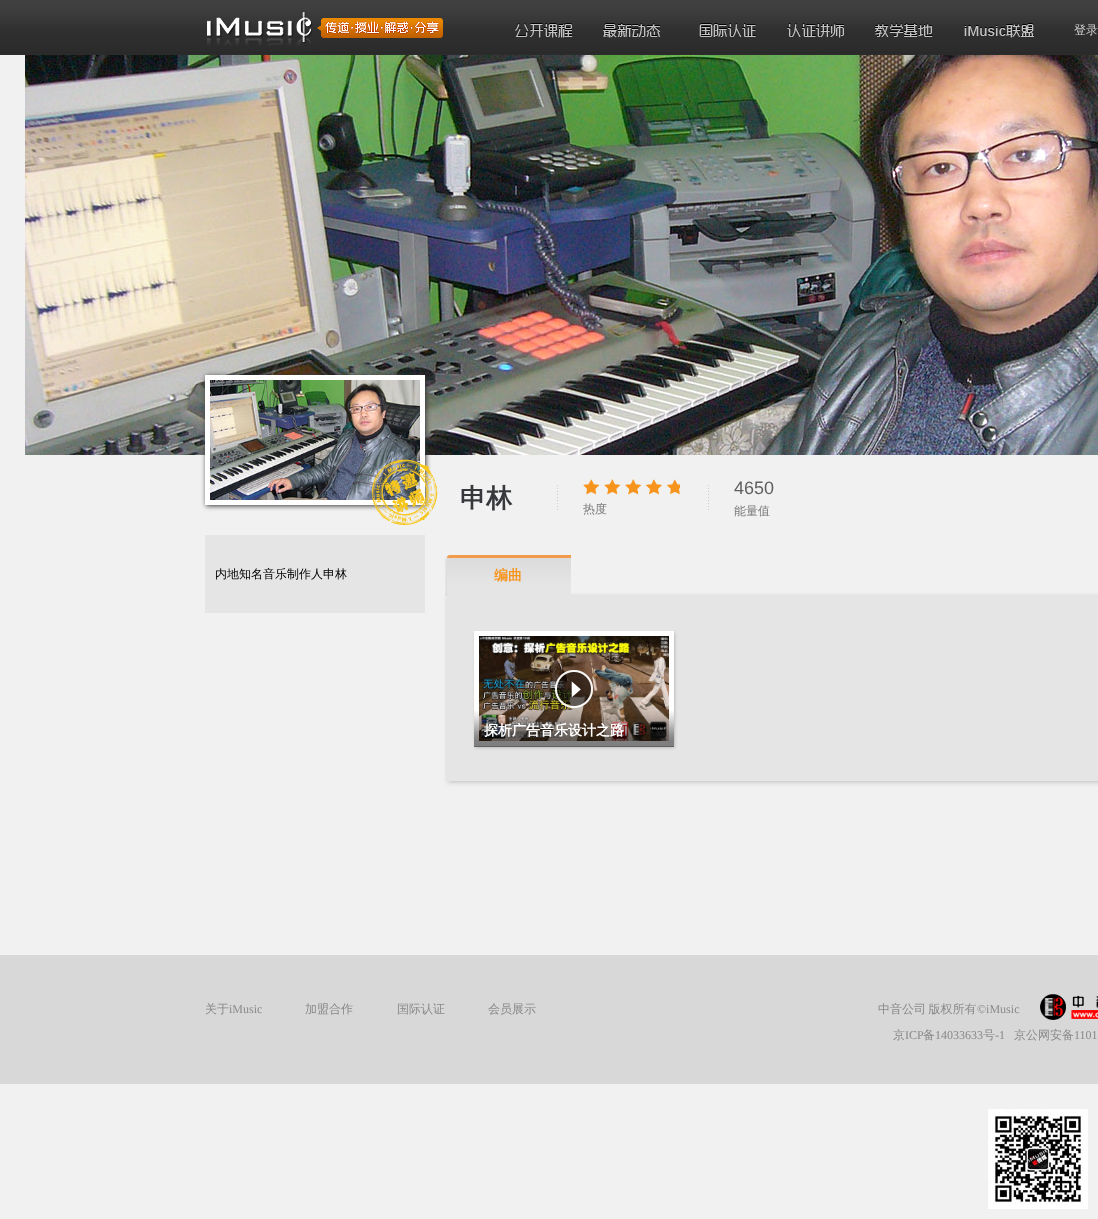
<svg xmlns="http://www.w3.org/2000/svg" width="1098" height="1219">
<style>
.a{font:500 12px WenQuanYi Zen Hei;fill:#cfcfcf}
.b{font:500 12px WenQuanYi Zen Hei;fill:#000}
.c{font:bold 26px WenQuanYi Zen Hei;fill:#36383c}
.d{font:500 12px WenQuanYi Zen Hei;fill:#787878}
.e{font:18px Liberation Sans;fill:#606060}
.f{font:bold 14px WenQuanYi Zen Hei;fill:#f7941d}
.g{font:bold 14px WenQuanYi Zen Hei;fill:#fff}
.h{font:500 12px WenQuanYi Zen Hei;fill:#898989}
.i{font:12px Liberation Serif;fill:#898989}
</style>
<rect width="100%" height="100%" fill="#f1f1f1"/>
<image href="1.png" x="0" y="0" width="1098" height="55"/>
<image href="2.png" x="207" y="12" width="236" height="34"/>
<image href="3.png" x="515" y="23" width="58" height="15"/>
<image href="4.png" x="603" y="23" width="58" height="15"/>
<image href="5.png" x="699" y="23" width="57" height="14"/>
<image href="6.png" x="787" y="23" width="57" height="15"/>
<image href="7.png" x="875" y="23" width="58" height="14"/>
<image href="8.png" x="964" y="23" width="70" height="15"/>
<image href="9.png" x="25" y="55" width="1073" height="400"/>
<path fill="#373737" filter="blur(2.5px)" d="M206 376h220v130H206z"/>
<path fill="#fff" d="M205 375h220v130H205z"/>
<image href="10.png" x="210" y="380" width="210" height="120"/>
<image href="11.png" x="371" y="459" width="67" height="66"/>
<path fill="#e5e5e5" d="M205 535h220v78H205z"/>
<image href="12.png" x="557" y="485" width="1" height="25"/>
<path fill="#f7941d" d="M583 479h97v16H583z"/>
<image href="13.png" x="583" y="475" width="97" height="23"/>
<image href="12.png" x="708" y="485" width="1" height="25"/>
<path fill="#bcbcbc" filter="blur(2.5px)" d="M448 597h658v185H448z"/>
<image href="14.png" x="445" y="555" width="126" height="41"/>
<path fill="#e5e5e5" d="M447 596h651v185H447z"/>
<path fill="#bcbcbc" filter="blur(1.5px)" d="M475 633h200v115H475z"/>
<path fill="#fff" d="M474 631h200v115H474z"/>
<image href="15.png" x="479" y="636" width="190" height="105"/>
<image href="16.png" x="555" y="670" width="38" height="38"/>
<image href="17.png" x="474" y="711" width="200" height="36"/>
<path fill="#d8d8d8" d="M0 955h1098v129H0z"/>
<image href="18.png" x="1040" y="994" width="58" height="26"/>
<image href="19.png" x="988" y="1109" width="100" height="100"/>
<text class="a" x="1074" y="34">登录</text>
<text class="b" x="215" y="578">内地知名音乐制作人申林</text>
<text class="c" x="460" y="507">申林</text>
<text class="d" x="583" y="513">热度</text>
<text class="e" x="734" y="494">4650</text>
<text class="d" x="734" y="515">能量值</text>
<text class="f" x="494" y="580">编曲</text>
<text class="g" x="484" y="735">探析广告音乐设计之路</text>
<text class="h" x="205" y="1013">关于</text>
<text class="i" x="229" y="1013">iMusic</text>
<text class="h" x="305" y="1013">加盟合作</text>
<text class="h" x="397" y="1013">国际认证</text>
<text class="h" x="488" y="1013">会员展示</text>
<text class="h" x="878" y="1013" word-spacing="-1">中音公司 版权所有</text>
<text class="i" x="977" y="1013">©iMusic</text>
<text class="h" x="893" y="1039">京</text>
<text class="i" x="905" y="1039">ICP</text>
<text class="h" x="923" y="1039">备</text>
<text class="i" x="935" y="1039">14033633</text>
<text class="h" x="983" y="1039">号</text>
<text class="i" x="995" y="1039">-1</text>
<text class="h" x="1014" y="1039">京公网安备</text>
<text class="i" x="1074" y="1039">1101</text>
</svg>
